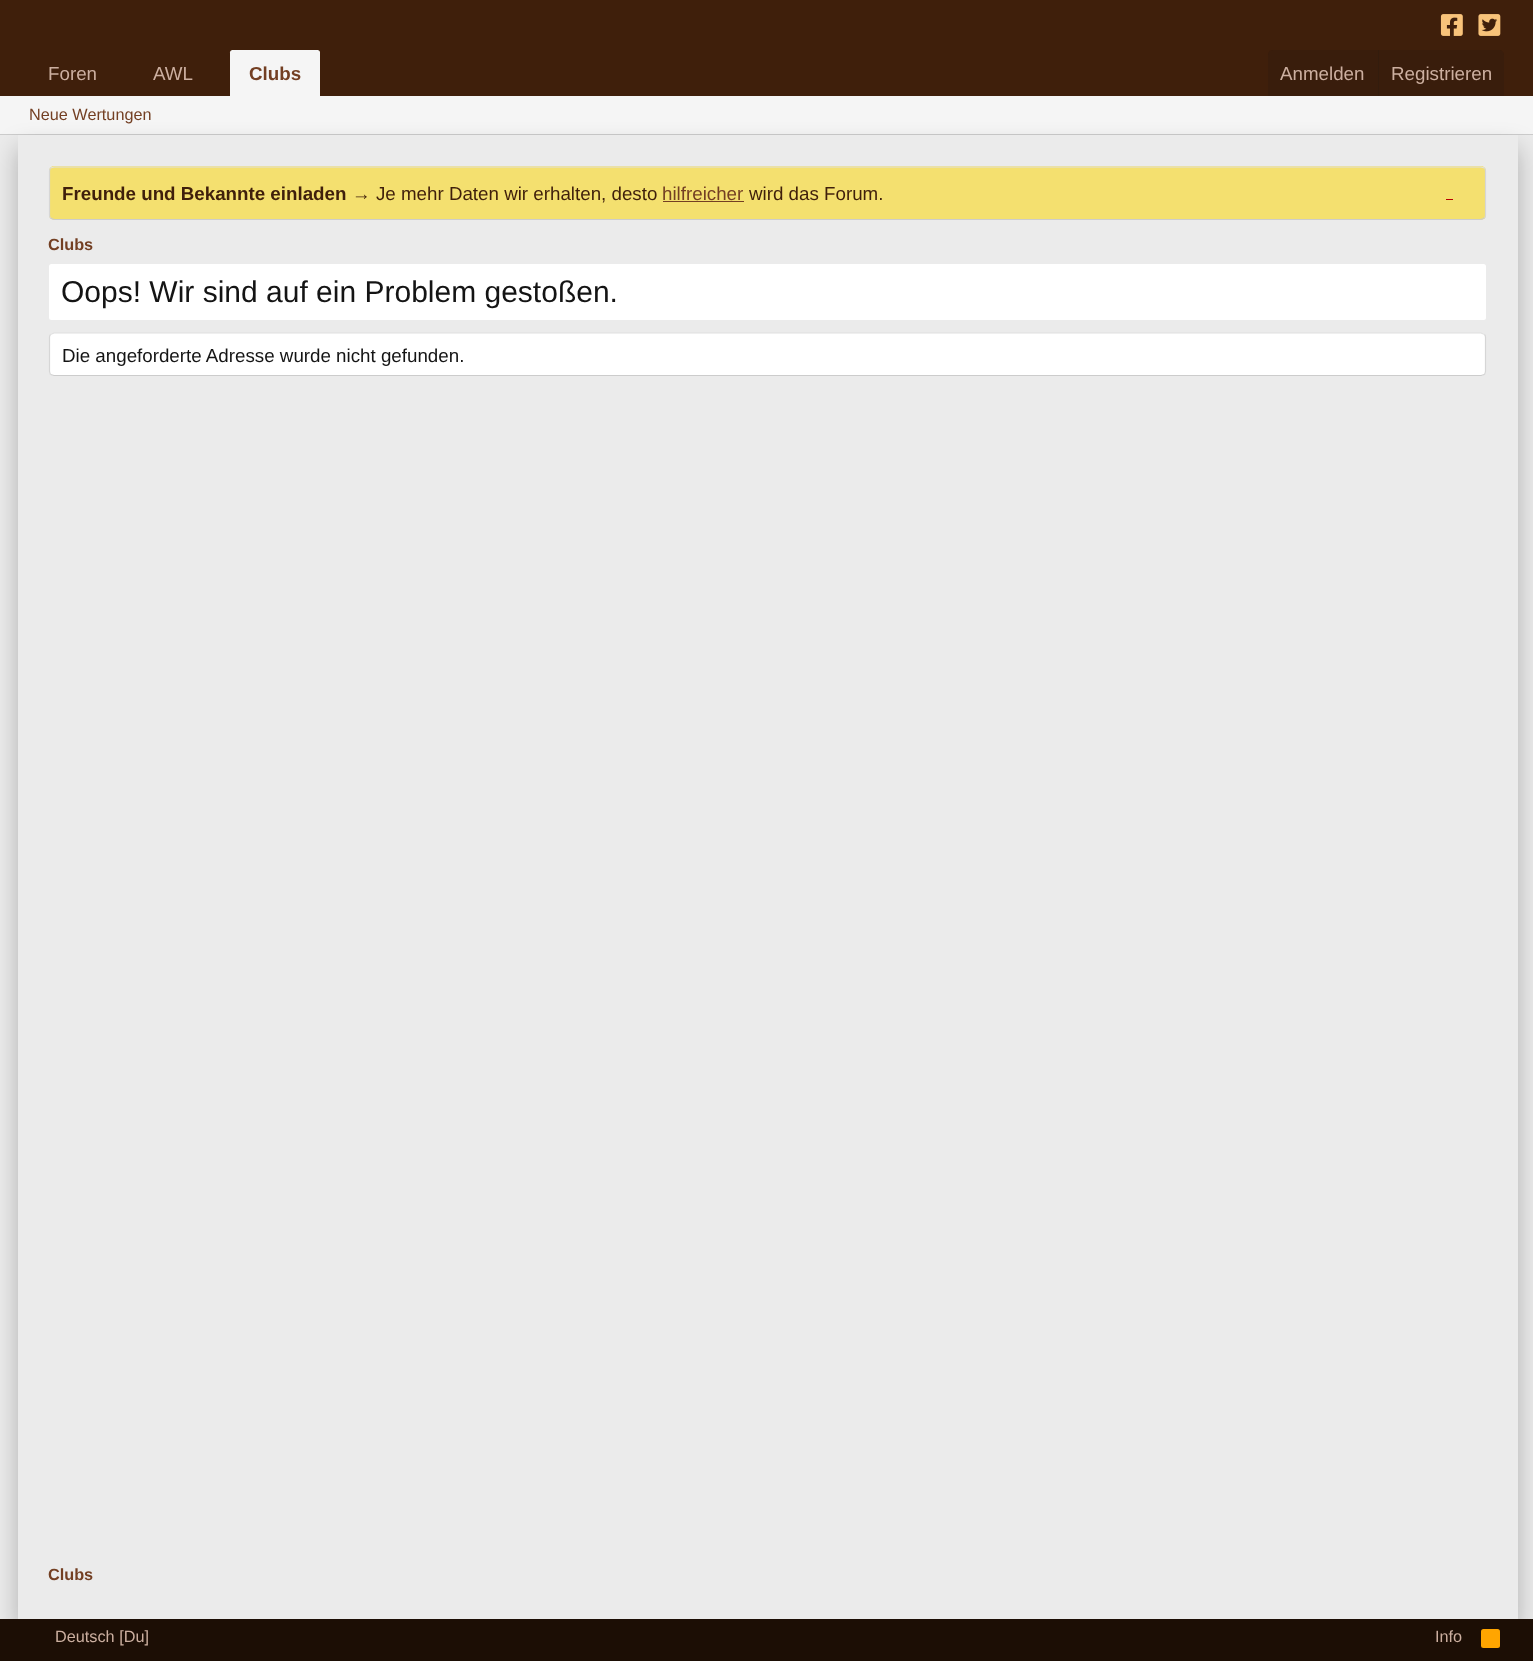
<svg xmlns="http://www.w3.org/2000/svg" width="1533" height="1661">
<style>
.a{font:18.75px Liberation Sans;fill:#ccafa0}
.b{font:bold 18.75px Liberation Sans;fill:#733f23}
.c{font:16.25px Liberation Sans;fill:#733f23}
.d{font:bold 18.75px Liberation Sans;fill:#3f1f0b}
.e{font:18.75px Liberation Sans;fill:#3f1f0b}
.f{font:18.75px Liberation Sans;fill:#733f23}
.g{font:bold 16.25px Liberation Sans;fill:#733f23}
.h{font:30px Liberation Sans;fill:#141414}
.i{font:18.75px Liberation Sans;fill:#141414}
.j{font:16.25px Liberation Sans;fill:#ccafa0}
</style>
<defs>
<clipPath id="clip1"><path d="M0 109h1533v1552h-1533zm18 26h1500v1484h-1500z" clip-rule="evenodd"/></clipPath>
</defs>
<rect width="100%" height="100%" fill="#ebebeb"/>
<path fill="#3f1f0b" d="M0 0h1533v96H0z"/>
<image href="1.png" x="1440" y="14" width="23" height="22"/>
<image href="2.png" x="1478" y="14" width="23" height="22"/>
<path fill="#f5f5f5" d="M232.5 50h85c1.5 0 2.5 1 2.5 2.5v43.5h-90v-43.5c0-1.5 1-2.5 2.5-2.5z"/>
<path fill="#391d0c" d="M1273 50h226c3 0 5 2 5 5v41h-236v-41c0-3 2-5 5-5z"/>
<path fill="#331c0d" d="M1378 50h1v46H1378z"/>
<path fill="#f5f5f5" d="M0 96h1533v38H0z"/>
<path fill="#ccc" d="M0 134h1533v1H0z"/>
<g clip-path="url(#clip1)">
<path fill="#01010140" filter="blur(12.5px)" d="M18 148h1500v1483H18z"/>
</g>
<rect fill="#f4e06f" x="49" y="166" width="1437" height="54" rx="5"/>
<path fill="none" stroke="#e0e0e0" stroke-width="1.2" d="M50.5 168l3.5-1h1427l3.5 1"/>
<path fill="none" stroke="#d6d6d6" stroke-width="1.2" d="M1484.5 168c.5 1 1 2 1 3v44c0 1-.5 2.5-1 3"/>
<path fill="none" stroke="#ccc" stroke-width="1.2" d="M1484.5 218l-3.5 1.5h-1427l-3.5-1.5"/>
<path fill="none" stroke="#d6d6d6" stroke-width="1.2" d="M50.5 218c-.5-.5-1-2-1-3v-44c0-1 .5-2 1-3"/>
<path fill="#733f23" d="M663 201h81v1H663z"/>
<path fill="#b80000" d="M1446 199h7v1H1446z"/>
<rect fill="#fff" x="49" y="264" width="1437" height="56" rx="2.5"/>
<rect fill="#fff" x="49" y="333" width="1437" height="43" rx="5"/>
<path fill="none" stroke="#e0e0e0" stroke-width="1.2" d="M50.5 334.5l3.5-1.5h1427l3.5 1.5"/>
<path fill="none" stroke="#d6d6d6" stroke-width="1.2" d="M1484.5 334.5c.5 .5 1 2 1 3v33.5c0 1.5-.5 2.5-1 3.5"/>
<path fill="none" stroke="#ccc" stroke-width="1.2" d="M1484.5 374.5l-3.5 1h-1427l-3.5-1"/>
<path fill="none" stroke="#d6d6d6" stroke-width="1.2" d="M50.5 374.5c-.5-1-1-2-1-3.5v-33.5c0-1 .5-2.5 1-3"/>
<path fill="#1c0e05" d="M0 1619h1533v42H0z"/>
<rect fill="#ffa500" x="1481" y="1629" width="19" height="19" rx="2.5"/>
<text class="a" x="48" y="80">Foren</text>
<text class="a" x="153" y="80">AWL</text>
<text class="b" x="249" y="80">Clubs</text>
<text class="a" x="1280" y="80">Anmelden</text>
<text class="a" x="1391" y="80">Registrieren</text>
<text class="c" x="29" y="120">Neue Wertungen</text>
<text class="d" x="62" y="200">Freunde und Bekannte einladen</text>
<text class="e" x="352" y="200">→ Je mehr Daten wir erhalten, desto</text>
<text class="f" x="662" y="200">hilfreicher</text>
<text class="e" x="749" y="200">wird das Forum.</text>
<text class="g" x="48" y="250">Clubs</text>
<text class="h" x="61" y="302">Oops! Wir sind auf ein Problem gestoßen.</text>
<text class="i" x="62" y="362">Die angeforderte Adresse wurde nicht gefunden.</text>
<text class="g" x="48" y="1580">Clubs</text>
<text class="j" x="55" y="1642">Deutsch [Du]</text>
<text class="j" x="1435" y="1642">Info</text>
</svg>
